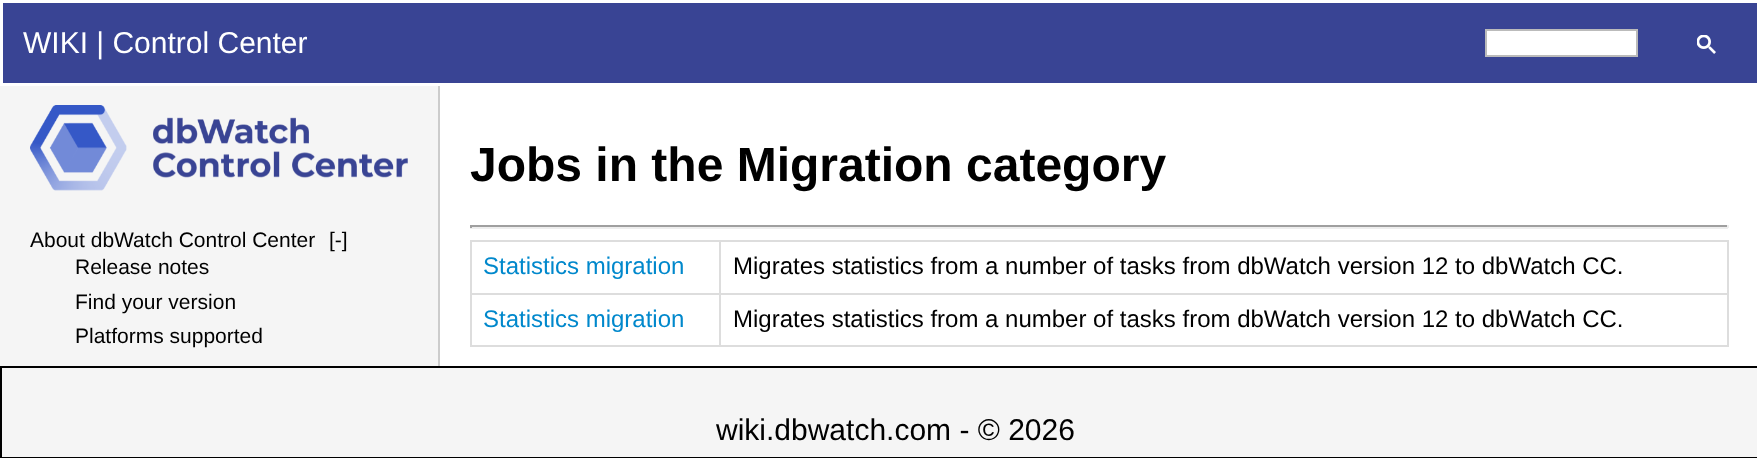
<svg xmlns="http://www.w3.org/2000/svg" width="1757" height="458">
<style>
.a{font:30px Liberation Sans;fill:#fff}
.b{font:21px Liberation Sans;fill:#000}
.c{font:bold 48px Liberation Sans;fill:#000}
.d{font:24px Liberation Sans;fill:#08c}
.e{font:24px Liberation Sans;fill:#000}
.f{font:30px Liberation Sans;fill:#000}
</style>
<rect width="100%" height="100%" fill="#fff"/>
<path fill="#394494" d="M3 3h1754v80H3z"/>
<path fill="#fff" stroke="#bbb" stroke-width="2" d="M1486 30h151v26H1486z"/>
<image href="1.png" x="1697" y="35" width="19" height="19"/>
<path fill="#f5f5f5" d="M0 86h438v280H0z"/>
<path fill="#ccc" d="M438 86h2v280H438z"/>
<image href="2.png" x="30" y="105" width="378" height="86"/>
<path fill="#9f9f9f" d="M470 225h1258v2H470z"/>
<path fill="#eee" d="M1727 225h2v3H1727z"/>
<path fill="#eee" d="M470 227h1258v2H470z"/>
<path fill="#9f9f9f" d="M470 225h2v3H470z"/>
<path fill="#ddd" d="M719 240h1009v2H719z"/>
<path fill="#ddd" d="M719 293h1009v2H719z"/>
<path fill="#ddd" d="M1727 293h2v54H1727z"/>
<path fill="#ddd" d="M719 345h1009v2H719z"/>
<path fill="#ddd" d="M719 293h2v54H719z"/>
<path fill="#ddd" d="M470 293h250v2H470z"/>
<path fill="#ddd" d="M719 240h2v54H719z"/>
<path fill="#ddd" d="M470 240h250v2H470z"/>
<path fill="#ddd" d="M470 345h250v2H470z"/>
<path fill="#ddd" d="M470 293h2v54H470z"/>
<path fill="#ddd" d="M470 240h2v54H470z"/>
<path fill="#ddd" d="M1727 240h2v54H1727z"/>
<path fill="#f5f5f5" stroke="#000" stroke-width="2" d="M1 367h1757v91H1z"/>
<text class="a" x="23" y="53">WIKI | Control Center</text>
<text class="b" x="30" y="247">About dbWatch Control Center</text>
<text class="b" x="329" y="247">[-]</text>
<text class="b" x="75" y="274">Release notes</text>
<text class="b" x="75" y="309">Find your version</text>
<text class="b" x="75" y="343">Platforms supported</text>
<text class="c" x="470" y="181">Jobs in the Migration category</text>
<text class="d" x="483" y="274">Statistics migration</text>
<text class="e" x="733" y="274">Migrates statistics from a number of tasks from dbWatch version 12 to dbWatch CC.</text>
<text class="d" x="483" y="327">Statistics migration</text>
<text class="e" x="733" y="327">Migrates statistics from a number of tasks from dbWatch version 12 to dbWatch CC.</text>
<text class="f" x="716" y="440">wiki.dbwatch.com - © 2026</text>
</svg>
